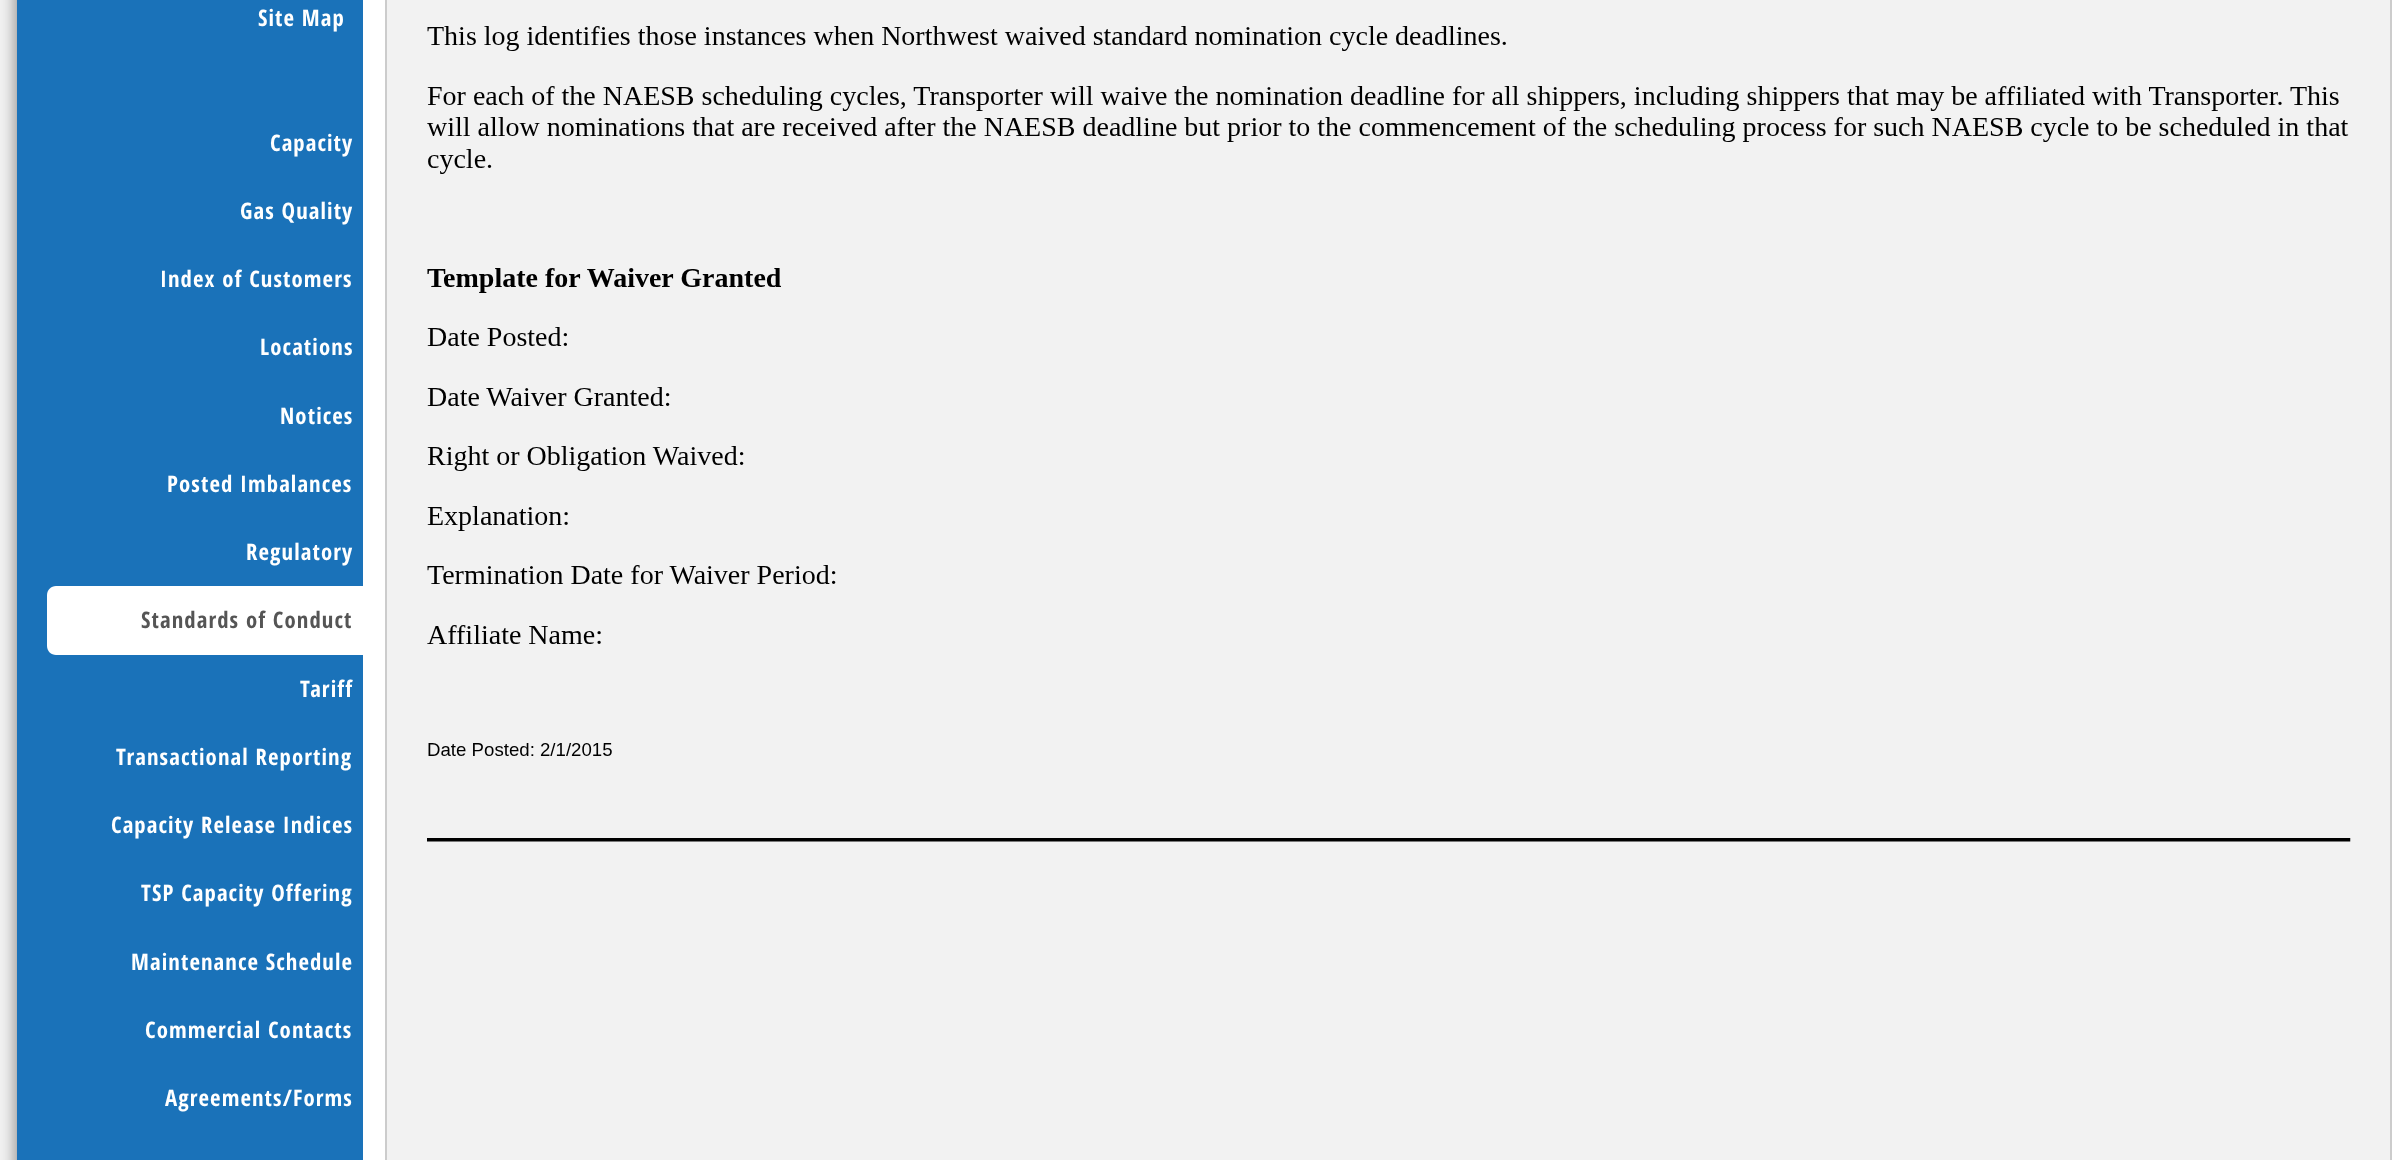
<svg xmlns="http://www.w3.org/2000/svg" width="2408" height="1160">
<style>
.a{font:bold 22.75px Open Sans Condensed;letter-spacing:1.1px;fill:#fff}
.b{font:bold 22.75px Open Sans Condensed;letter-spacing:1.1px;fill:#555}
</style>
<rect width="100%" height="100%" fill="#f2f2f2"/>
<rect fill="#999" filter="blur(7px)" x="14" y="-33" width="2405" height="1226" rx="12"/>
<path fill="#1a72b9" d="M17 0h346v1160H17z"/>
<path fill="#fff" d="M363 0h2045v1160H363z"/>
<path fill="#fff" d="M56 586h324v69h-324c-5 0-9-4-9-9v-51c0-5 4-9 9-9z"/>
<path fill="#f2f2f2" stroke="#ccc" stroke-width="2" d="M386 -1h2005v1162H386z"/>
<image href="1.png" x="427" y="26" width="1924" height="816"/>
<text class="a" x="258" y="26">Site Map</text>
<text class="a" x="270" y="151">Capacity</text>
<text class="a" x="240" y="219">Gas Quality</text>
<text class="a" x="160" y="287">Index of Customers</text>
<text class="a" x="260" y="355">Locations</text>
<text class="a" x="280" y="424">Notices</text>
<text class="a" x="167" y="492">Posted Imbalances</text>
<text class="a" x="246" y="560">Regulatory</text>
<text class="b" x="141" y="628">Standards of Conduct</text>
<text class="a" x="300" y="697">Tariff</text>
<text class="a" x="116" y="765">Transactional Reporting</text>
<text class="a" x="111" y="833">Capacity Release Indices</text>
<text class="a" x="141" y="901">TSP Capacity Offering</text>
<text class="a" x="131" y="970">Maintenance Schedule</text>
<text class="a" x="145" y="1038">Commercial Contacts</text>
<text class="a" x="165" y="1106">Agreements/Forms</text>
</svg>
